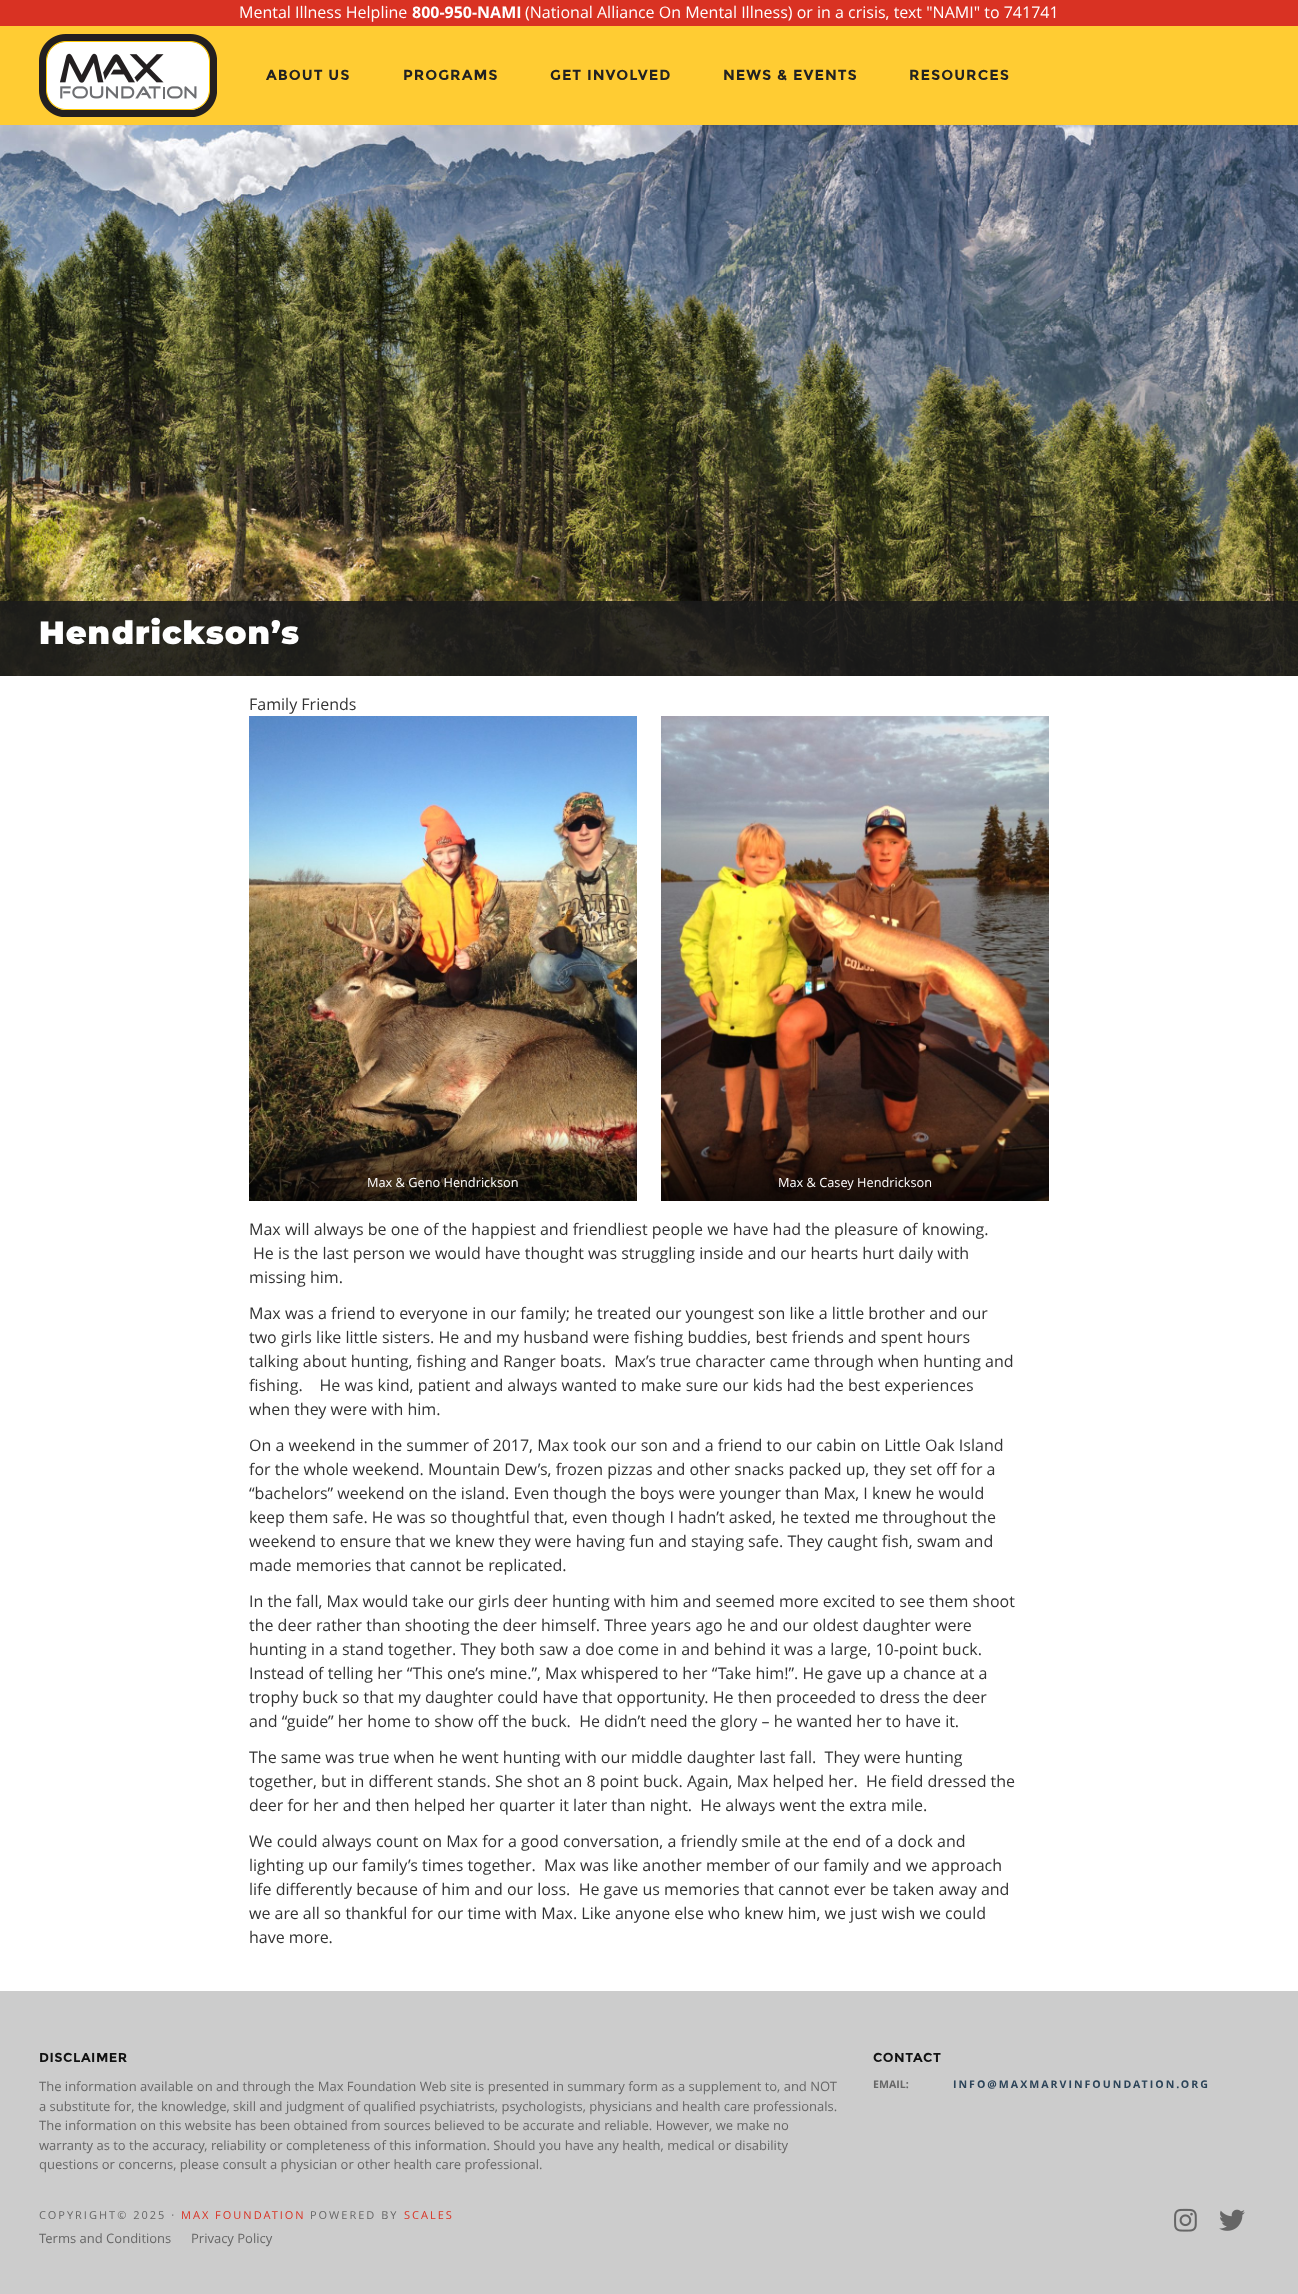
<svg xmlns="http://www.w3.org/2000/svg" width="1298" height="2294">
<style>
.a{font:16px Open Sans;fill:#fff}
.b{font:bold 16px Open Sans;fill:#fff}
.c{font:bold 14.5px Montserrat;letter-spacing:1px;fill:#222}
.d{font:900 32px Montserrat;letter-spacing:1px;fill:#fff}
.e{font:16px Open Sans;fill:#333}
.f{font:12.75px Open Sans;fill:#fff}
.g{font:bold 13px Montserrat;letter-spacing:0.5px;fill:#111}
.h{font:13px Open Sans;fill:#666}
.i{font:bold 10.6px Open Sans;fill:#666}
.j{font:bold 10.6px Open Sans;letter-spacing:2px;fill:#2c4459}
.k{font:11px Open Sans;letter-spacing:2px;fill:#666}
.l{font:11px Open Sans;letter-spacing:2px;fill:#d93223}
</style>
<rect width="100%" height="100%" fill="#fff"/>
<path fill="#fc3" d="M0 26h1298v99H0z"/>
<path fill="#d93223" d="M0 0h1298v26H0z"/>
<image href="1.png" x="39" y="34" width="178" height="83"/>
<image href="2.png" x="0" y="125" width="1298" height="551"/>
<path fill="#1b1b1be6" d="M23 601h1220v75H23z"/>
<path fill="#1b1b1be6" d="M0 601h23v75H0z"/>
<path fill="#1b1b1be6" d="M1243 601h55v75H1243z"/>
<image href="3.png" x="249" y="716" width="388" height="485"/>
<image href="4.png" x="661" y="716" width="388" height="485"/>
<path fill="#ccc" d="M0 1991h1298v303H0z"/>
<image href="5.png" x="1174" y="2208" width="23" height="24"/>
<image href="6.png" x="1219" y="2209" width="26" height="22"/>
<text class="a" x="239" y="18">Mental Illness Helpline</text>
<text class="b" x="412" y="18">800-950-NAMI</text>
<text class="a" x="525" y="18">(National Alliance On Mental Illness) or in a crisis, text "NAMI" to 741741</text>
<text class="c" x="266" y="80">ABOUT US</text>
<text class="c" x="403" y="80">PROGRAMS</text>
<text class="c" x="550" y="80">GET INVOLVED</text>
<text class="c" x="723" y="80">NEWS &amp; EVENTS</text>
<text class="c" x="909" y="80">RESOURCES</text>
<text class="d" x="39" y="644">Hendrickson’s</text>
<text class="e" x="249" y="710">Family Friends</text>
<text class="f" x="367" y="1187">Max &amp; Geno Hendrickson</text>
<text class="f" x="778" y="1187">Max &amp; Casey Hendrickson</text>
<text class="e" x="249" y="1235">Max will always be one of the happiest and friendliest people we have had the pleasure of knowing.</text>
<text class="e" x="253" y="1259">He is the last person we would have thought was struggling inside and our hearts hurt daily with</text>
<text class="e" x="249" y="1283">missing him.</text>
<text class="e" x="249" y="1319">Max was a friend to everyone in our family; he treated our youngest son like a little brother and our</text>
<text class="e" x="249" y="1343">two girls like little sisters. He and my husband were fishing buddies, best friends and spent hours</text>
<text class="e" xml:space="preserve" x="249" y="1367">talking about hunting, fishing and Ranger boats.  Max’s true character came through when hunting and</text>
<text class="e" xml:space="preserve" x="249" y="1391">fishing.    He was kind, patient and always wanted to make sure our kids had the best experiences</text>
<text class="e" x="249" y="1415">when they were with him.</text>
<text class="e" x="249" y="1451">On a weekend in the summer of 2017, Max took our son and a friend to our cabin on Little Oak Island</text>
<text class="e" x="249" y="1475">for the whole weekend. Mountain Dew’s, frozen pizzas and other snacks packed up, they set off for a</text>
<text class="e" x="249" y="1499">“bachelors” weekend on the island. Even though the boys were younger than Max, I knew he would</text>
<text class="e" x="249" y="1523">keep them safe. He was so thoughtful that, even though I hadn’t asked, he texted me throughout the</text>
<text class="e" x="249" y="1547">weekend to ensure that we knew they were having fun and staying safe. They caught fish, swam and</text>
<text class="e" x="249" y="1571">made memories that cannot be replicated.</text>
<text class="e" x="249" y="1607">In the fall, Max would take our girls deer hunting with him and seemed more excited to see them shoot</text>
<text class="e" x="249" y="1631">the deer rather than shooting the deer himself. Three years ago he and our oldest daughter were</text>
<text class="e" x="249" y="1655">hunting in a stand together. They both saw a doe come in and behind it was a large, 10-point buck.</text>
<text class="e" x="249" y="1679">Instead of telling her “This one’s mine.”, Max whispered to her “Take him!”. He gave up a chance at a</text>
<text class="e" x="249" y="1703">trophy buck so that my daughter could have that opportunity. He then proceeded to dress the deer</text>
<text class="e" xml:space="preserve" x="249" y="1727">and “guide” her home to show off the buck.  He didn’t need the glory – he wanted her to have it.</text>
<text class="e" xml:space="preserve" x="249" y="1763">The same was true when he went hunting with our middle daughter last fall.  They were hunting</text>
<text class="e" xml:space="preserve" x="249" y="1787">together, but in different stands. She shot an 8 point buck. Again, Max helped her.  He field dressed the</text>
<text class="e" xml:space="preserve" x="249" y="1811">deer for her and then helped her quarter it later than night.  He always went the extra mile.</text>
<text class="e" x="249" y="1847">We could always count on Max for a good conversation, a friendly smile at the end of a dock and</text>
<text class="e" xml:space="preserve" x="249" y="1871">lighting up our family’s times together.  Max was like another member of our family and we approach</text>
<text class="e" xml:space="preserve" x="249" y="1895">life differently because of him and our loss.  He gave us memories that cannot ever be taken away and</text>
<text class="e" x="249" y="1919">we are all so thankful for our time with Max. Like anyone else who knew him, we just wish we could</text>
<text class="e" x="249" y="1943">have more.</text>
<text class="g" x="39" y="2062">DISCLAIMER</text>
<text class="h" x="39" y="2091">The information available on and through the Max Foundation Web site is presented in summary form as a supplement to, and NOT</text>
<text class="h" x="39" y="2111">a substitute for, the knowledge, skill and judgment of qualified psychiatrists, psychologists, physicians and health care professionals.</text>
<text class="h" x="39" y="2130">The information on this website has been obtained from sources believed to be accurate and reliable. However, we make no</text>
<text class="h" x="39" y="2150">warranty as to the accuracy, reliability or completeness of this information. Should you have any health, medical or disability</text>
<text class="h" x="39" y="2169">questions or concerns, please consult a physician or other health care professional.</text>
<text class="g" x="873" y="2062">CONTACT</text>
<text class="i" x="873" y="2088">EMAIL:</text>
<text class="j" x="953" y="2088">INFO@MAXMARVINFOUNDATION.ORG</text>
<text class="k" x="39" y="2219">COPYRIGHT© 2025 ·</text>
<text class="l" x="181" y="2219">MAX FOUNDATION</text>
<text class="k" x="310" y="2219">POWERED BY</text>
<text class="l" x="404" y="2219">SCALES</text>
<text class="h" x="39" y="2243">Terms and Conditions</text>
<text class="h" x="191" y="2243">Privacy Policy</text>
</svg>
